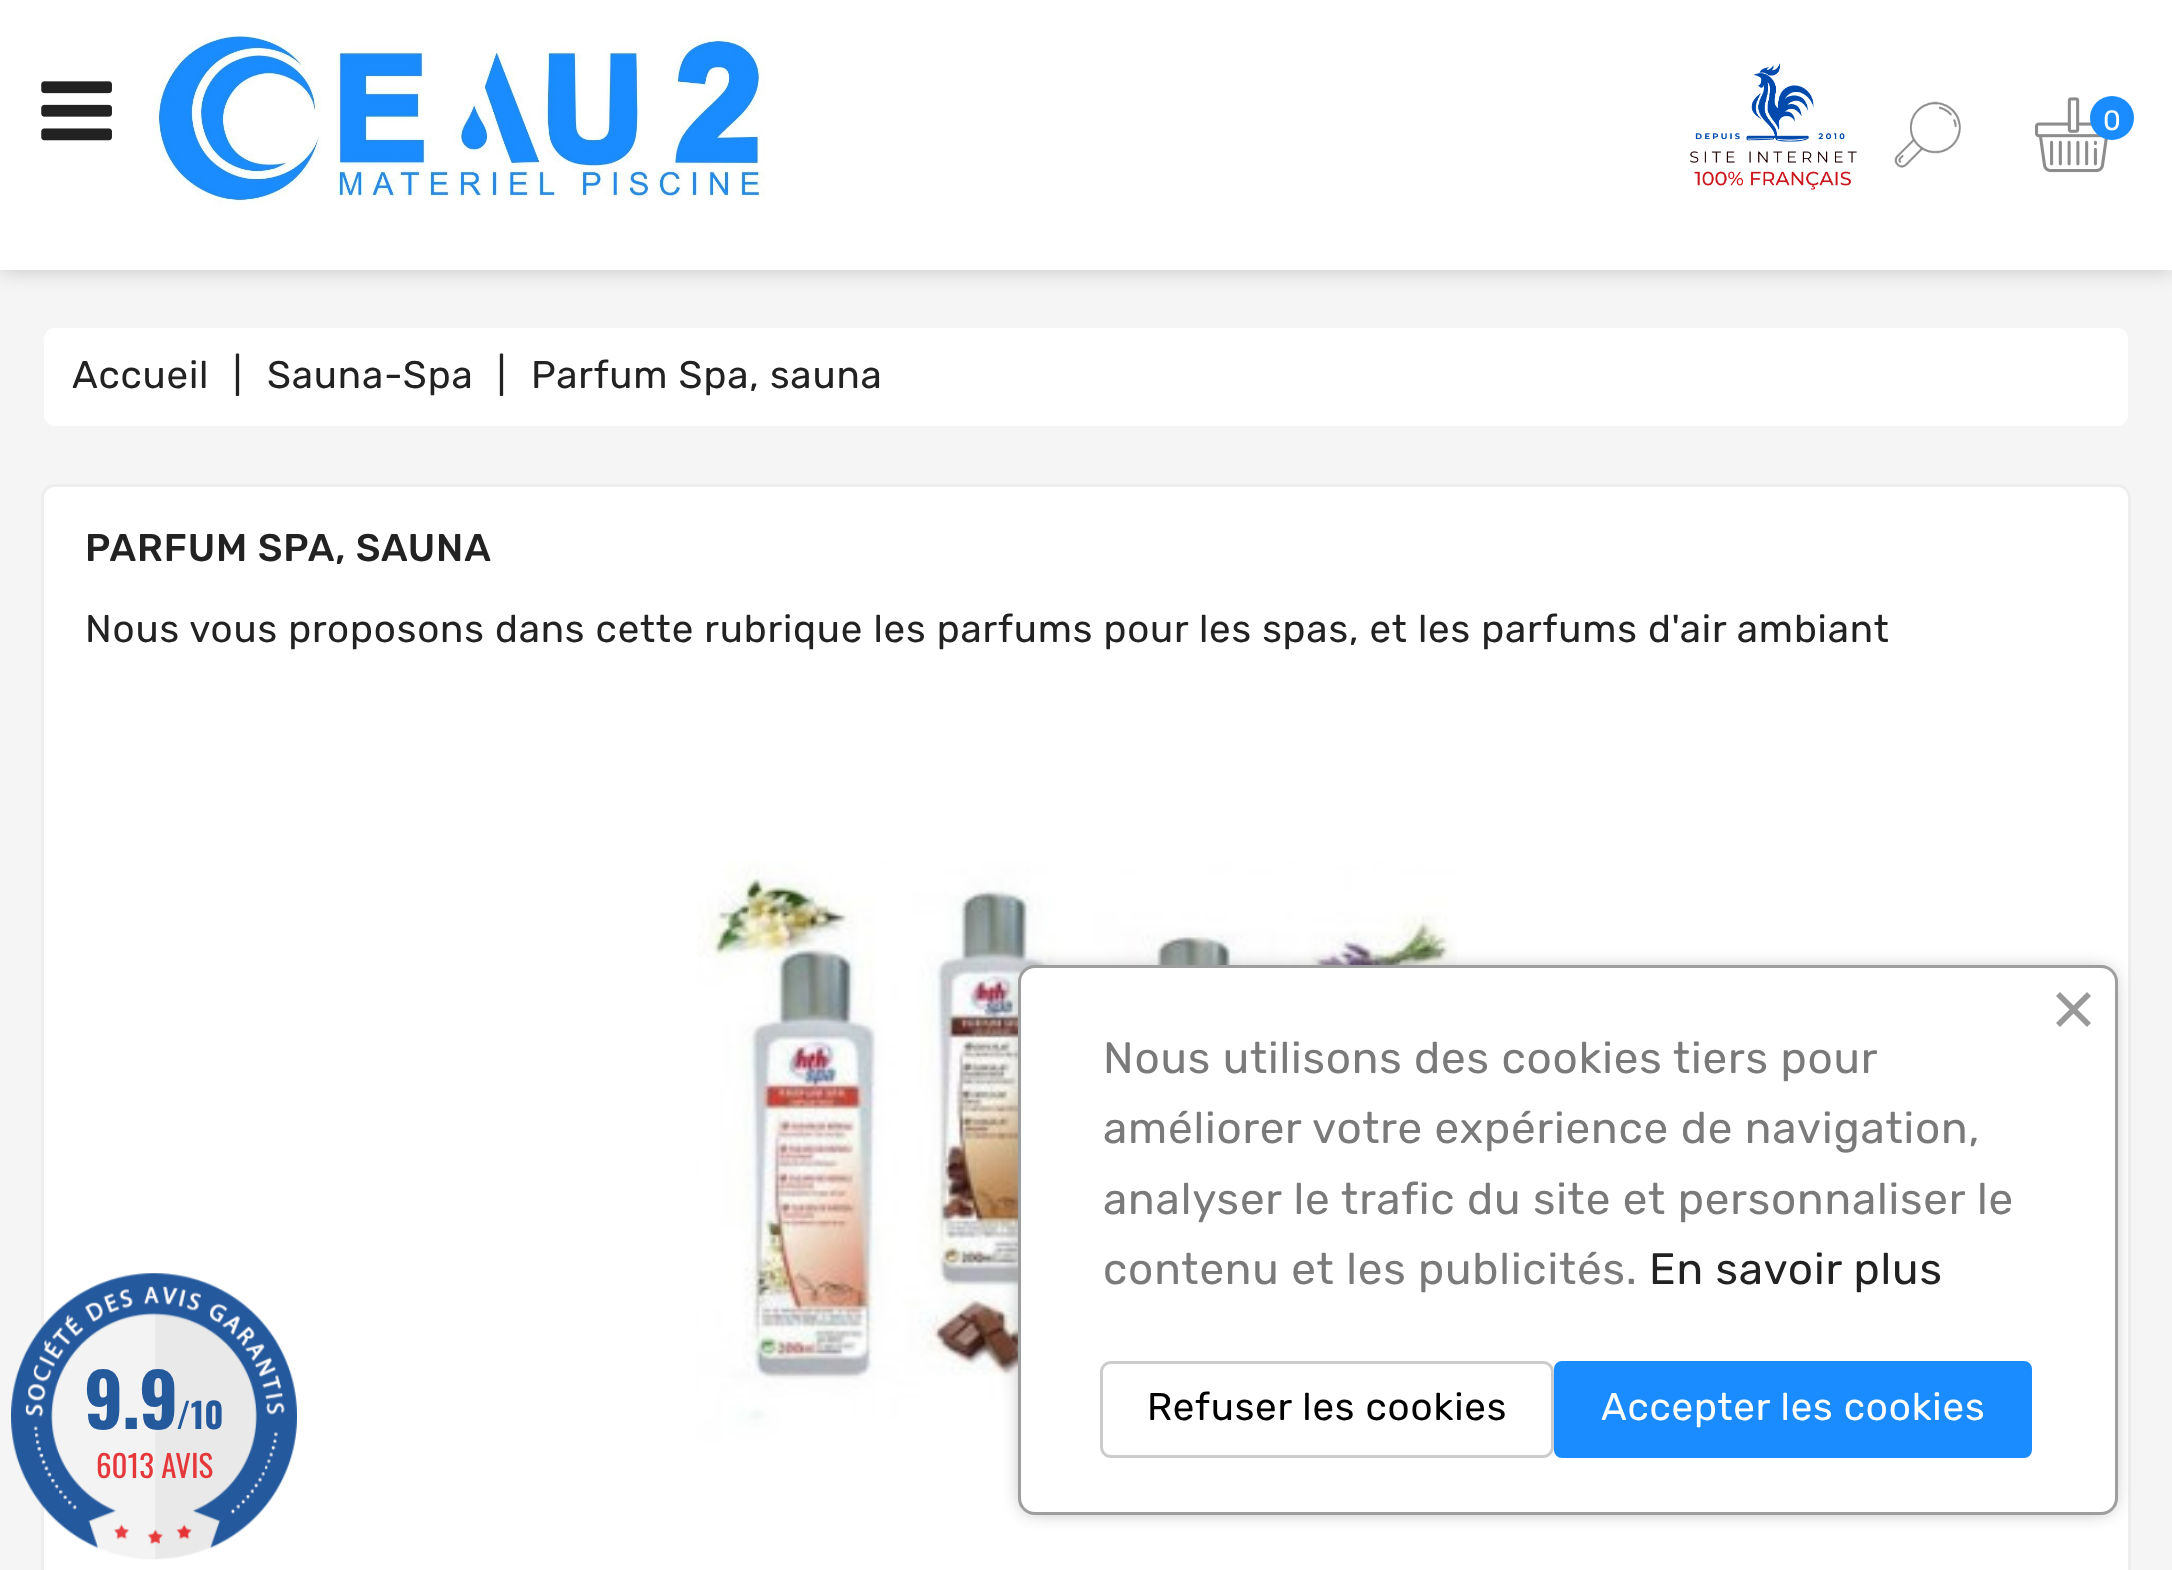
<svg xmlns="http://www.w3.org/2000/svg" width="2172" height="1570">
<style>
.a{font:28px Rubik;letter-spacing:0.82px;fill:#fff}
.b{font:38.5px Rubik;letter-spacing:0.82px;fill:#222}
.c{font:500 38.5px Rubik;letter-spacing:0.82px;fill:#222}
.d{font:bold 73px Oswald;letter-spacing:-1px;fill:#24599c}
.e{font:bold 35px Oswald;fill:#24599c}
.f{font:31px Oswald;fill:#e5383b}
.g{font:44px Rubik;letter-spacing:0.82px;fill:#7a7a7a}
.h{font:44px Rubik;letter-spacing:0.82px;fill:#222}
.i{font:38.5px Rubik;letter-spacing:0.82px;fill:#000}
.j{font:38.5px Rubik;letter-spacing:0.82px;fill:#fff}
</style>
<rect width="100%" height="100%" fill="#f5f5f5"/>
<path fill="#00000033" filter="blur(11px)" d="M0 0h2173v270H0z"/>
<path fill="#fff" d="M0 0h2172v270H0z"/>
<image href="1.png" x="41" y="81" width="71" height="60"/>
<image href="2.png" x="154" y="35" width="612" height="170"/>
<image href="3.png" x="1690" y="63" width="167" height="127"/>
<image href="4.png" x="1894" y="101" width="67" height="67"/>
<image href="5.png" x="2035" y="97" width="73" height="76"/>
<circle fill="#1a8cff" cx="2112" cy="118" r="22"/>
<rect fill="#fff" stroke="#f5f5f5" stroke-width="3" x="42.5" y="326.5" width="2087" height="101" rx="12.5"/>
<rect fill="#fff" stroke="#eee" stroke-width="3" x="42.5" y="485.5" width="2087" height="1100" rx="12.5"/>
<image href="6.png" x="697" y="860" width="760" height="584"/>
<image href="7.png" x="11" y="1273" width="286" height="287"/>
<rect fill="#9e9e9e" filter="blur(9.5px)" x="1023" y="971" width="1089" height="539" rx="11"/>
<rect fill="#fff" stroke="#9e9e9e" stroke-width="3" x="1019.5" y="966.5" width="1097" height="547" rx="15.5"/>
<path fill="#999" d="M2056 1023l31-31l4 4l-31 31z"/>
<path fill="#999" d="M2060 992l31 31l-4 4l-31-31z"/>
<rect fill="none" stroke="#ccc" stroke-width="3" x="1101.5" y="1362.5" width="451" height="94" rx="9.5"/>
<rect fill="#1a8cff" stroke="#1a8cff" stroke-width="3" x="1555.5" y="1362.5" width="475" height="94" rx="6.5"/>
<text class="a" x="2103" y="130">0</text>
<text class="b" x="72" y="388">Accueil</text>
<text class="b" x="233" y="388">|</text>
<text class="b" x="267" y="388">Sauna-Spa</text>
<text class="b" x="497" y="388">|</text>
<text class="b" x="531" y="388">Parfum Spa, sauna</text>
<text class="c" x="85" y="561">PARFUM SPA, SAUNA</text>
<text class="b" x="85" y="642">Nous vous proposons dans cette rubrique les parfums pour les spas, et les parfums d'air ambiant</text>
<text class="d" x="84" y="1429">9.9</text>
<text class="e" x="176" y="1429">/10</text>
<text class="f" x="96" y="1478">6013 AVIS</text>
<text class="g" x="1103" y="1073">Nous utilisons des cookies tiers pour</text>
<text class="g" x="1103" y="1143">améliorer votre expérience de navigation,</text>
<text class="g" x="1103" y="1214">analyser le trafic du site et personnaliser le</text>
<text class="g" x="1103" y="1284">contenu et les publicités.</text>
<text class="h" x="1649" y="1284">En savoir plus</text>
<text class="i" x="1147" y="1420">Refuser les cookies</text>
<text class="j" x="1601" y="1420">Accepter les cookies</text>
</svg>
